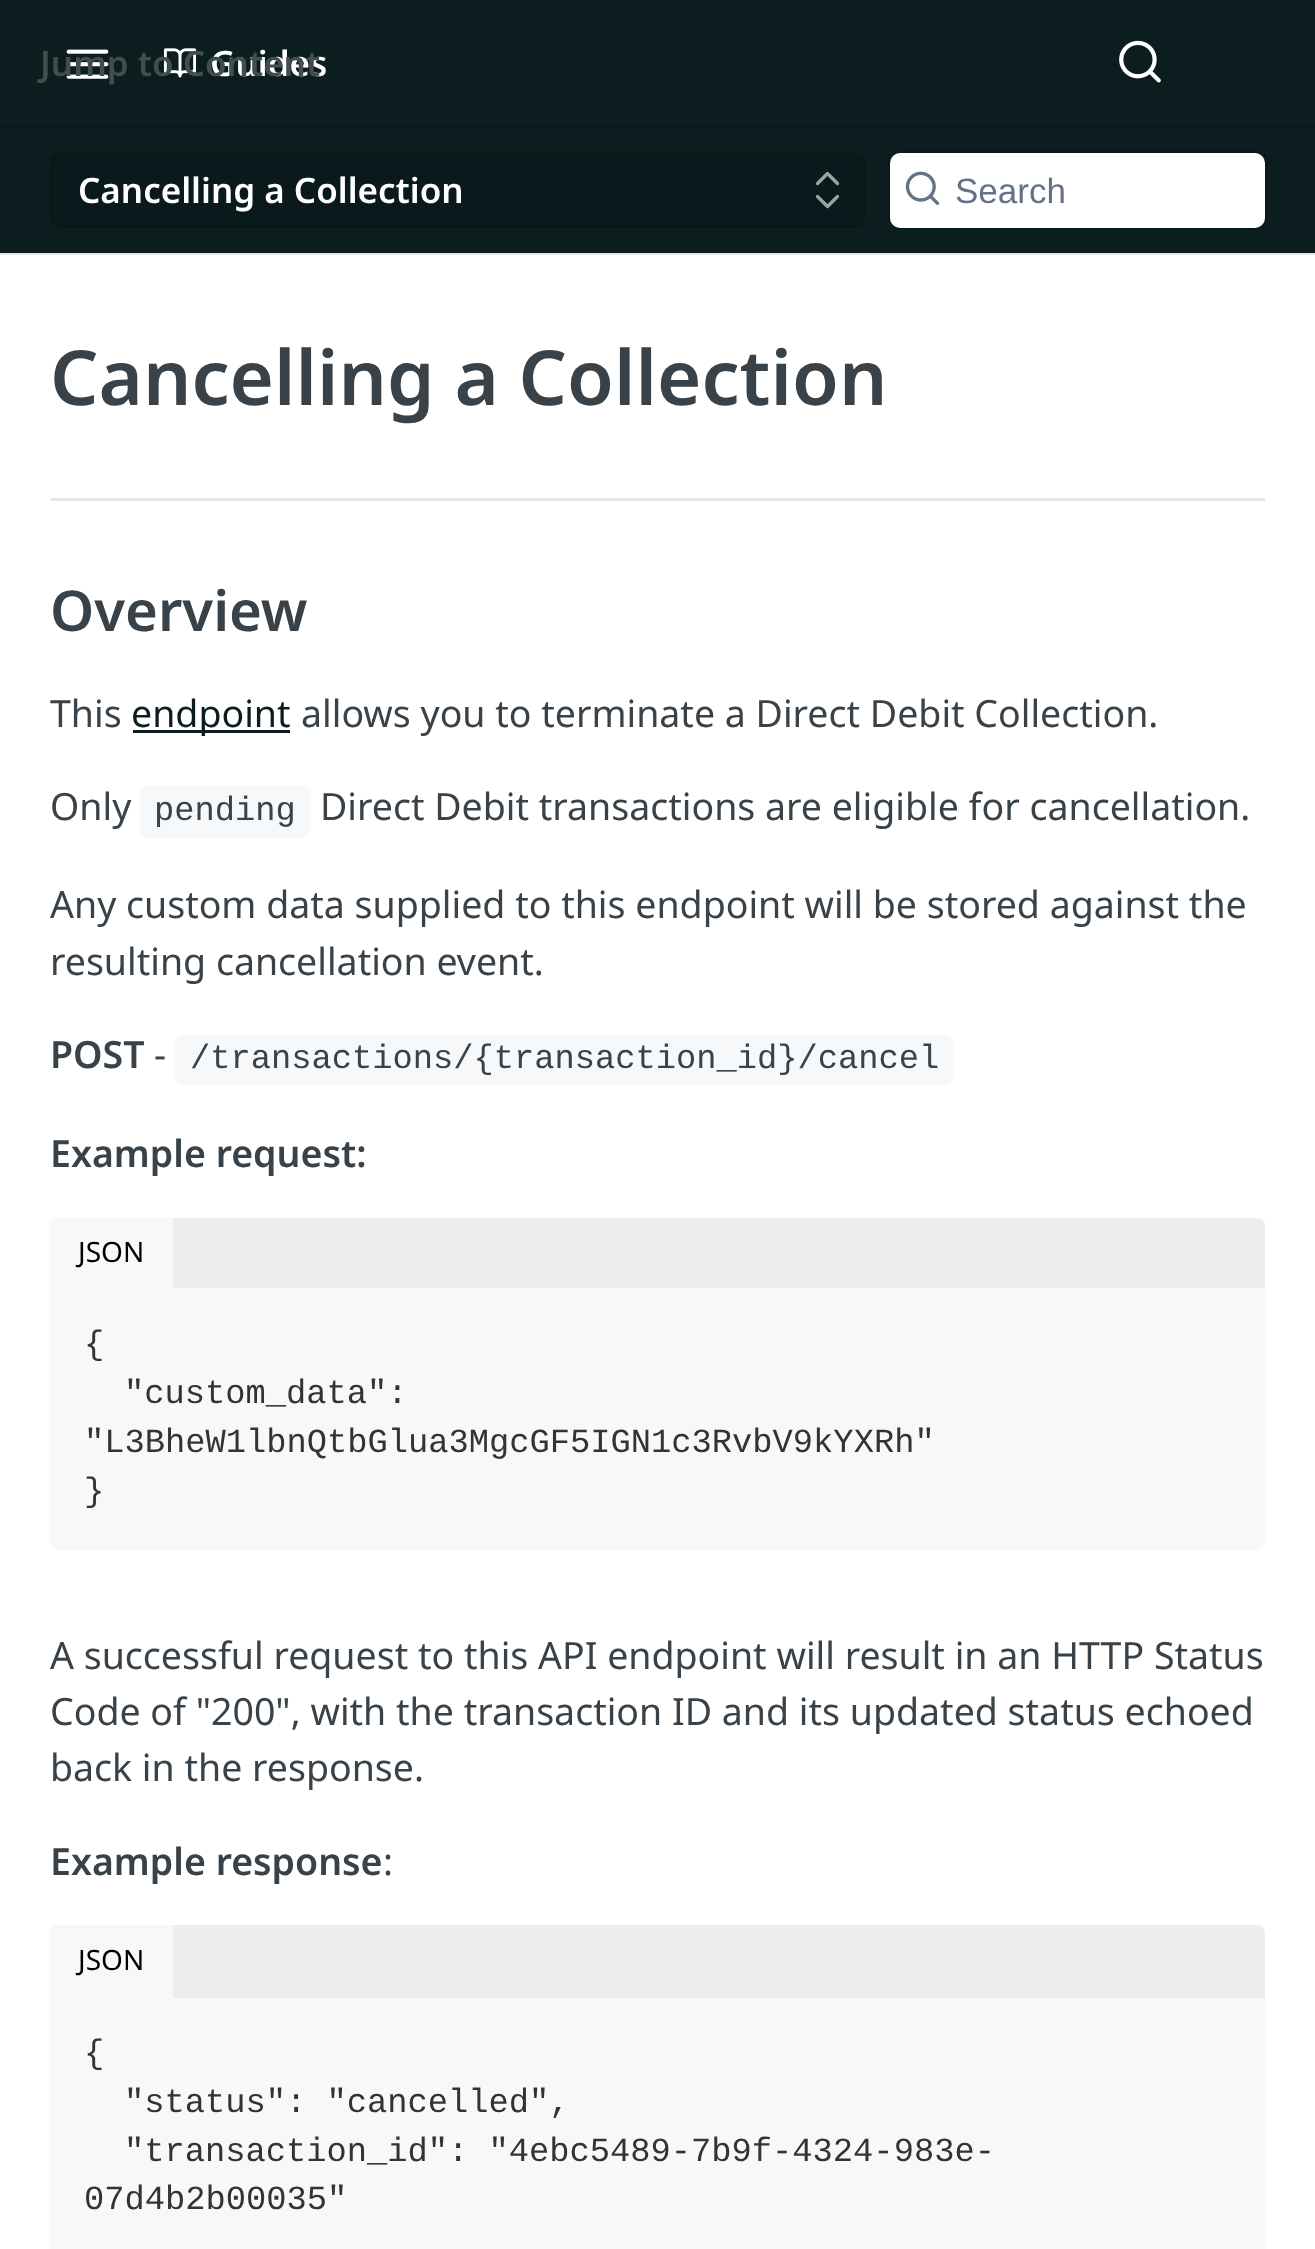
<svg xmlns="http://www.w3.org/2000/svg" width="1315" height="2249">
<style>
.a{font:600 35px Noto Sans;fill:#fff}
.b{font:600 35px Noto Sans;fill:#404e50}
.c{font:35px Liberation Sans;fill:#637288}
.d{font:600 76px Noto Sans;fill:#384248}
.e{font:600 56.25px Noto Sans;fill:#384248}
.f{font:37.5px Noto Sans;fill:#384248}
.g{font:37.5px Noto Sans;fill:#0b1d1f}
.h{font:33.75px Liberation Mono;fill:#384248}
.i{font:600 37.5px Noto Sans;fill:#384248}
.j{font:28px Noto Sans;fill:#000}
.k{font:33.75px Liberation Mono;fill:#333}
</style>
<rect width="100%" height="100%" fill="#fff"/>
<path fill="#e6e6e6" d="M0 253h1315v2H0z"/>
<path fill="#0b1d1f" d="M0 0h1315v253H0z"/>
<path fill="#0a1a1c" d="M0 125h1315v3H0z"/>
<image href="1.png" x="66" y="49" width="43" height="30"/>
<image href="2.png" x="163" y="48" width="34" height="30"/>
<image href="3.png" x="1119" y="40" width="42" height="43"/>
<rect fill="#0a1a1c" stroke="#091719" stroke-width="3" x="51.5" y="154.5" width="812" height="72" rx="8.5"/>
<path fill="none" stroke="#9da3a4" stroke-width="3.3" stroke-linecap="round" stroke-linejoin="round" d="M817.5 196.5l10 10l10-10m0-13l-10-10l-10 10"/>
<rect fill="none" stroke="#0a1a1c" stroke-width="3" x="889.5" y="151.5" width="377" height="77" rx="11.5"/>
<rect fill="#fff" x="890" y="153" width="375" height="75" rx="10"/>
<image href="4.png" x="905" y="171" width="35" height="34"/>
<path fill="#e6e6e6" d="M50 498h1215v3H50z"/>
<path fill="#0b1d1f" d="M133 730h157v3H133z"/>
<rect fill="#f6f8fa" x="140" y="785" width="170" height="53" rx="8"/>
<rect fill="#f6f8fa" x="175" y="1035" width="778" height="50" rx="8"/>
<path fill="#ebedef" d="M58 1218h1199c4.5 0 8 3.5 8 8v62h-1215v-62c0-4.5 3.5-8 8-8z"/>
<path fill="#f6f8fa" d="M58 1218h115v70h-123v-62c0-4.5 3.5-8 8-8z"/>
<path fill="#f6f8fa" d="M50 1288h1215v254c0 4.5-3.5 8-8 8h-1199c-4.5 0-8-3.5-8-8z"/>
<path fill="#ebedef" d="M58 1925h1199c4.5 0 8 3.5 8 8v65h-1215v-65c0-4.5 3.5-8 8-8z"/>
<path fill="#f6f8fa" d="M58 1925h115v73h-123v-65c0-4.5 3.5-8 8-8z"/>
<path fill="#f6f8fa" d="M50 1998h1215v251H50z"/>
<text class="a" x="210" y="76">Guides</text>
<text class="b" x="40" y="76">Jump to Content</text>
<text class="a" x="78" y="203">Cancelling a Collection</text>
<text class="c" x="955" y="203">Search</text>
<text class="d" x="50" y="405">Cancelling a Collection</text>
<text class="e" x="50" y="631">Overview</text>
<text class="f" x="50" y="727">This</text>
<text class="g" x="131" y="727">endpoint</text>
<text class="f" x="301" y="727">allows you to terminate a Direct Debit Collection.</text>
<text class="f" x="50" y="820">Only</text>
<text class="h" x="154" y="820">pending</text>
<text class="f" x="320" y="820">Direct Debit transactions are eligible for cancellation.</text>
<text class="f" x="50" y="918">Any custom data supplied to this endpoint will be stored against the</text>
<text class="f" x="50" y="975">resulting cancellation event.</text>
<text class="i" x="50" y="1068">POST</text>
<text class="f" x="154" y="1068">-</text>
<text class="h" x="190" y="1068">/transactions/{transaction_id}/cancel</text>
<text class="i" x="50" y="1167">Example request:</text>
<text class="j" x="78" y="1262">JSON</text>
<text class="k" x="84" y="1354">{</text>
<text class="k" x="124" y="1403">"custom_data":</text>
<text class="k" x="84" y="1452">"L3BheW1lbnQtbGlua3MgcGF5IGN1c3RvbV9kYXRh"</text>
<text class="k" x="84" y="1501">}</text>
<text class="f" x="50" y="1669">A successful request to this API endpoint will result in an HTTP Status</text>
<text class="f" x="50" y="1725">Code of "200", with the transaction ID and its updated status echoed</text>
<text class="f" x="50" y="1781">back in the response.</text>
<text class="i" x="50" y="1875">Example response</text>
<text class="f" x="383" y="1875">:</text>
<text class="j" x="78" y="1970">JSON</text>
<text class="k" x="84" y="2063">{</text>
<text class="k" x="124" y="2112">"status": "cancelled",</text>
<text class="k" x="124" y="2161">"transaction_id": "4ebc5489-7b9f-4324-983e-</text>
<text class="k" x="84" y="2209">07d4b2b00035"</text>
</svg>
